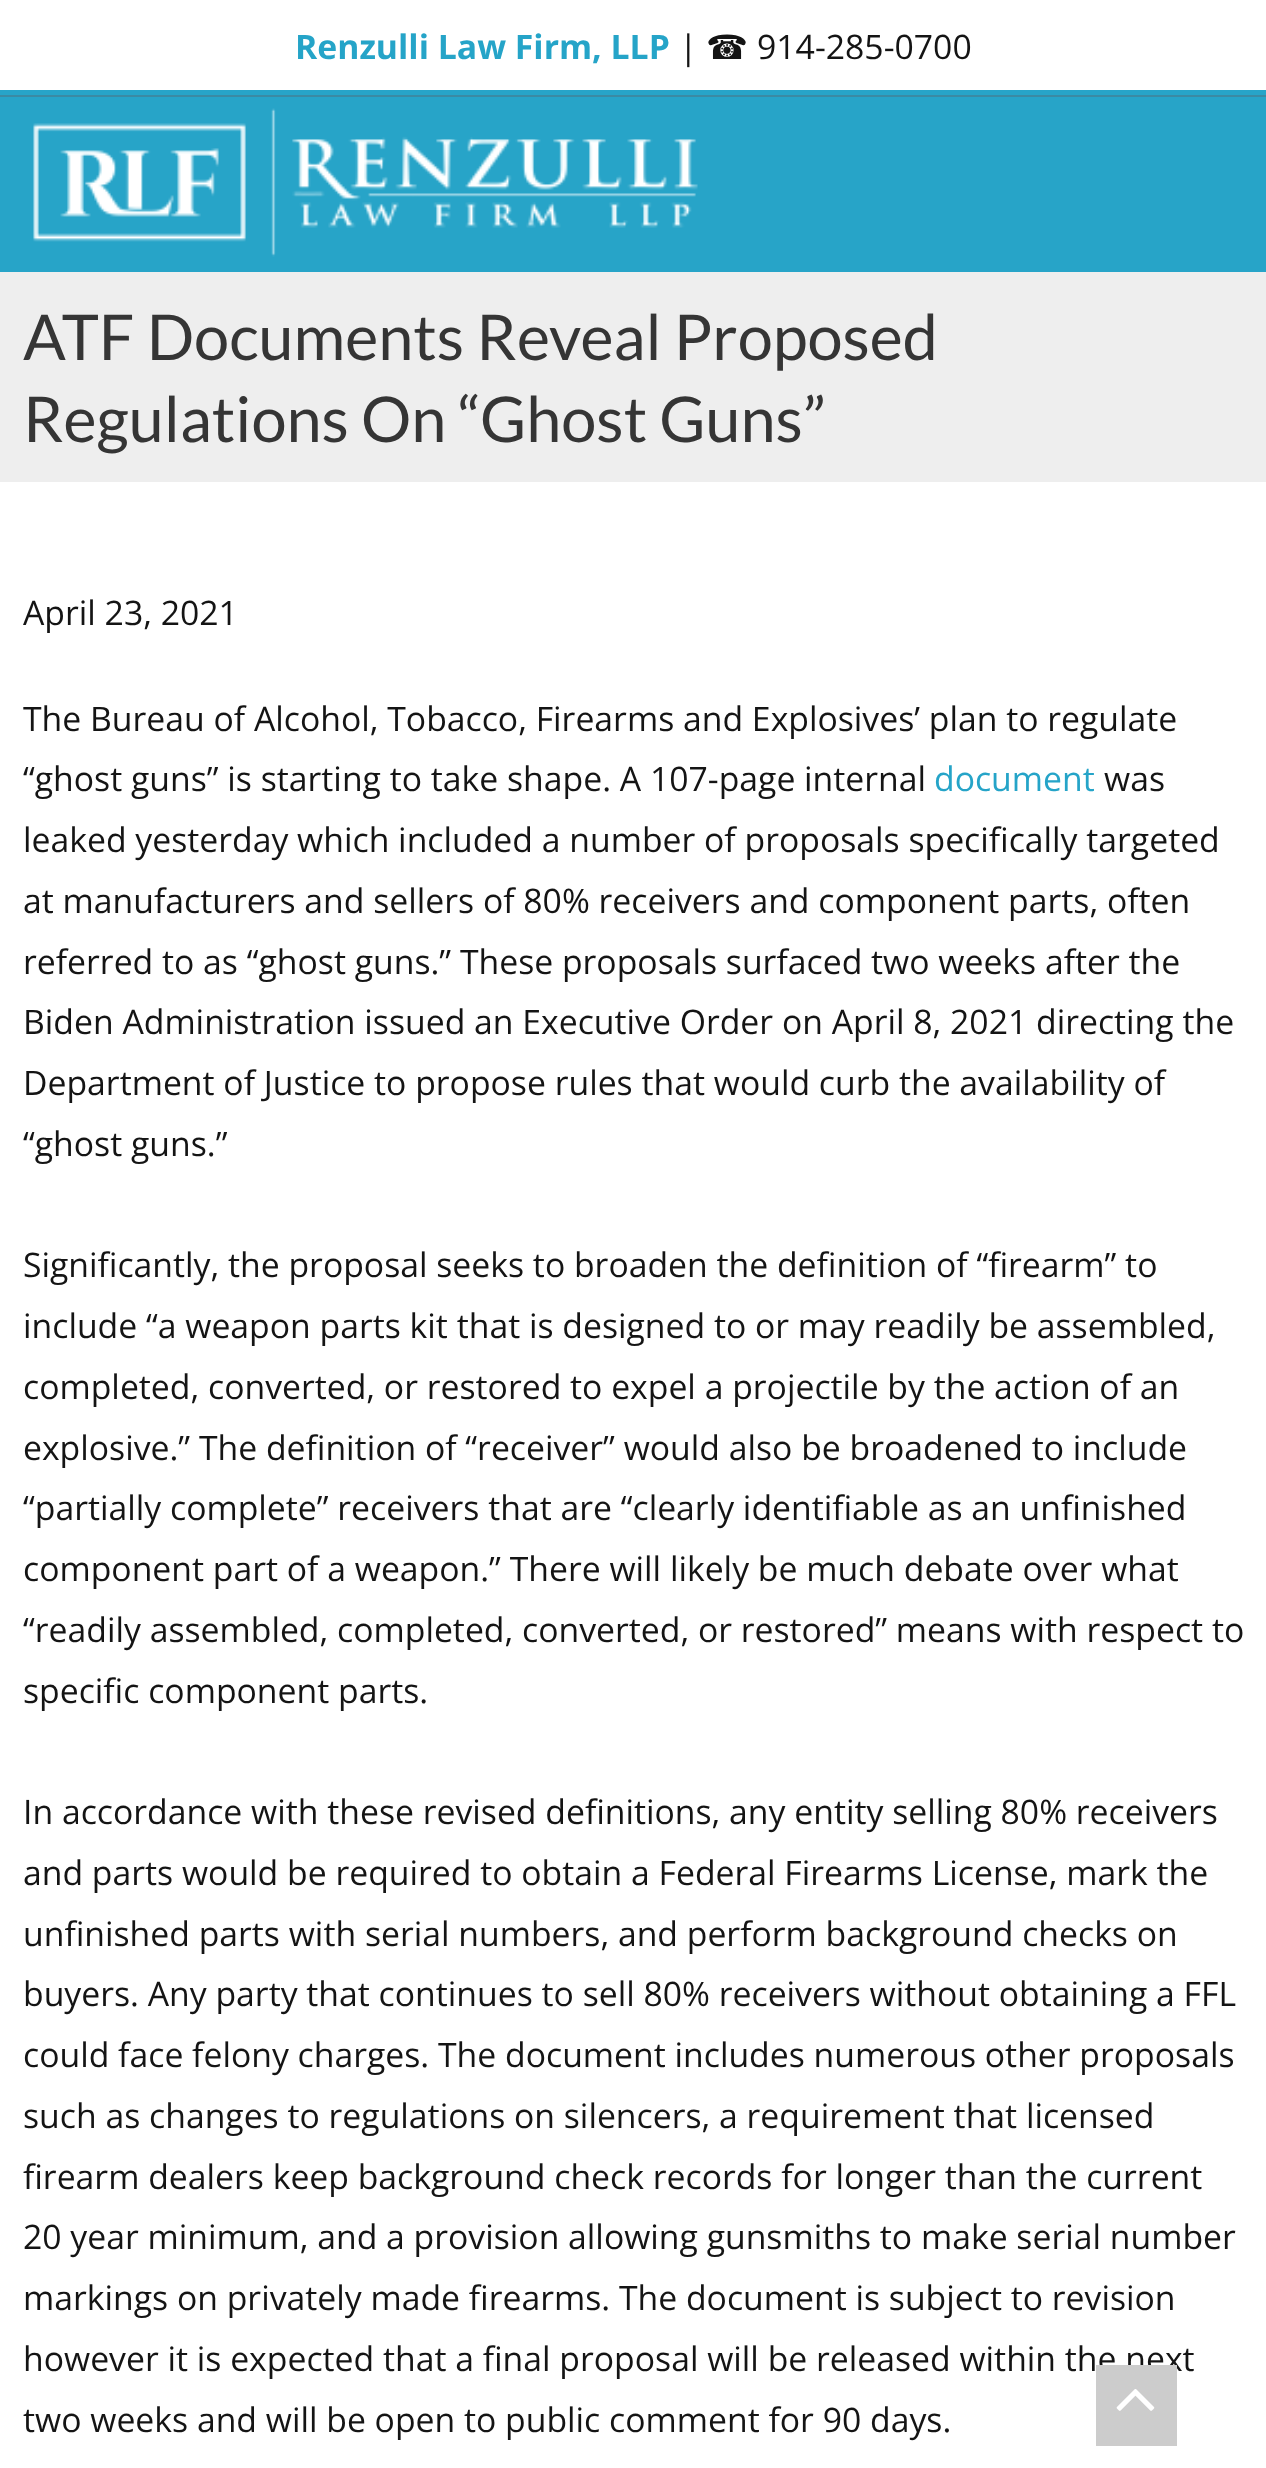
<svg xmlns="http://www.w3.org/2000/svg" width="1266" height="2468">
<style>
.a{font:bold 33.75px Open Sans;fill:#25a4c8}
.b{font:33.75px Open Sans;fill:#141414}
.c{font:33.75px DejaVu Sans;fill:#141414}
.d{font:63px Lato;fill:#353535}
.e{font:33.75px Open Sans;fill:#25a4c8}
</style>
<rect width="100%" height="100%" fill="#fff"/>
<path fill="#27a4c8" d="M0 90h1266v5H0z"/>
<path fill="#27a4c8" d="M0 97h1266v175H0z"/>
<path fill="#3b8aa3" d="M0 95h1266v2H0z"/>
<image href="1.png" x="33" y="108" width="665" height="149"/>
<path fill="#eee" d="M0 272h1266v210H0z"/>
<text class="a" x="295" y="59">Renzulli Law Firm, LLP</text>
<text class="b" x="679" y="59">|</text>
<text class="c" x="706" y="59">☎</text>
<text class="b" x="757" y="59">914-285-0700</text>
<text class="d" x="23" y="360">ATF Documents Reveal Proposed</text>
<text class="d" x="23" y="442">Regulations On “Ghost Guns”</text>
<text class="b" x="23" y="625">April 23, 2021</text>
<text class="b" x="23" y="731">The Bureau of Alcohol, Tobacco, Firearms and Explosives’ plan to regulate</text>
<text class="b" x="23" y="791">“ghost guns” is starting to take shape. A 107-page internal</text>
<text class="e" x="934" y="791">document</text>
<text class="b" x="1104" y="791">was</text>
<text class="b" x="23" y="852">leaked yesterday which included a number of proposals specifically targeted</text>
<text class="b" x="23" y="913">at manufacturers and sellers of 80% receivers and component parts, often</text>
<text class="b" x="23" y="974">referred to as “ghost guns.” These proposals surfaced two weeks after the</text>
<text class="b" x="23" y="1034">Biden Administration issued an Executive Order on April 8, 2021 directing the</text>
<text class="b" x="23" y="1095">Department of Justice to propose rules that would curb the availability of</text>
<text class="b" x="23" y="1156">“ghost guns.”</text>
<text class="b" x="23" y="1277">Significantly, the proposal seeks to broaden the definition of “firearm” to</text>
<text class="b" x="23" y="1338">include “a weapon parts kit that is designed to or may readily be assembled,</text>
<text class="b" x="23" y="1399">completed, converted, or restored to expel a projectile by the action of an</text>
<text class="b" x="23" y="1460">explosive.” The definition of “receiver” would also be broadened to include</text>
<text class="b" x="23" y="1520">“partially complete” receivers that are “clearly identifiable as an unfinished</text>
<text class="b" x="23" y="1581">component part of a weapon.” There will likely be much debate over what</text>
<text class="b" x="23" y="1642">“readily assembled, completed, converted, or restored” means with respect to</text>
<text class="b" x="23" y="1703">specific component parts.</text>
<text class="b" x="23" y="1824">In accordance with these revised definitions, any entity selling 80% receivers</text>
<text class="b" x="23" y="1885">and parts would be required to obtain a Federal Firearms License, mark the</text>
<text class="b" x="23" y="1946">unfinished parts with serial numbers, and perform background checks on</text>
<text class="b" x="23" y="2006">buyers. Any party that continues to sell 80% receivers without obtaining a FFL</text>
<text class="b" x="23" y="2067">could face felony charges. The document includes numerous other proposals</text>
<text class="b" x="23" y="2128">such as changes to regulations on silencers, a requirement that licensed</text>
<text class="b" x="23" y="2189">firearm dealers keep background check records for longer than the current</text>
<text class="b" x="23" y="2249">20 year minimum, and a provision allowing gunsmiths to make serial number</text>
<text class="b" x="23" y="2310">markings on privately made firearms. The document is subject to revision</text>
<text class="b" x="23" y="2371">however it is expected that a final proposal will be released within the next</text>
<text class="b" x="23" y="2432">two weeks and will be open to public comment for 90 days.</text>
<path fill="#ccc" d="M1096 2365h81v81H1096z"/>
<image href="2.png" x="1116" y="2389" width="39" height="22"/>
</svg>
